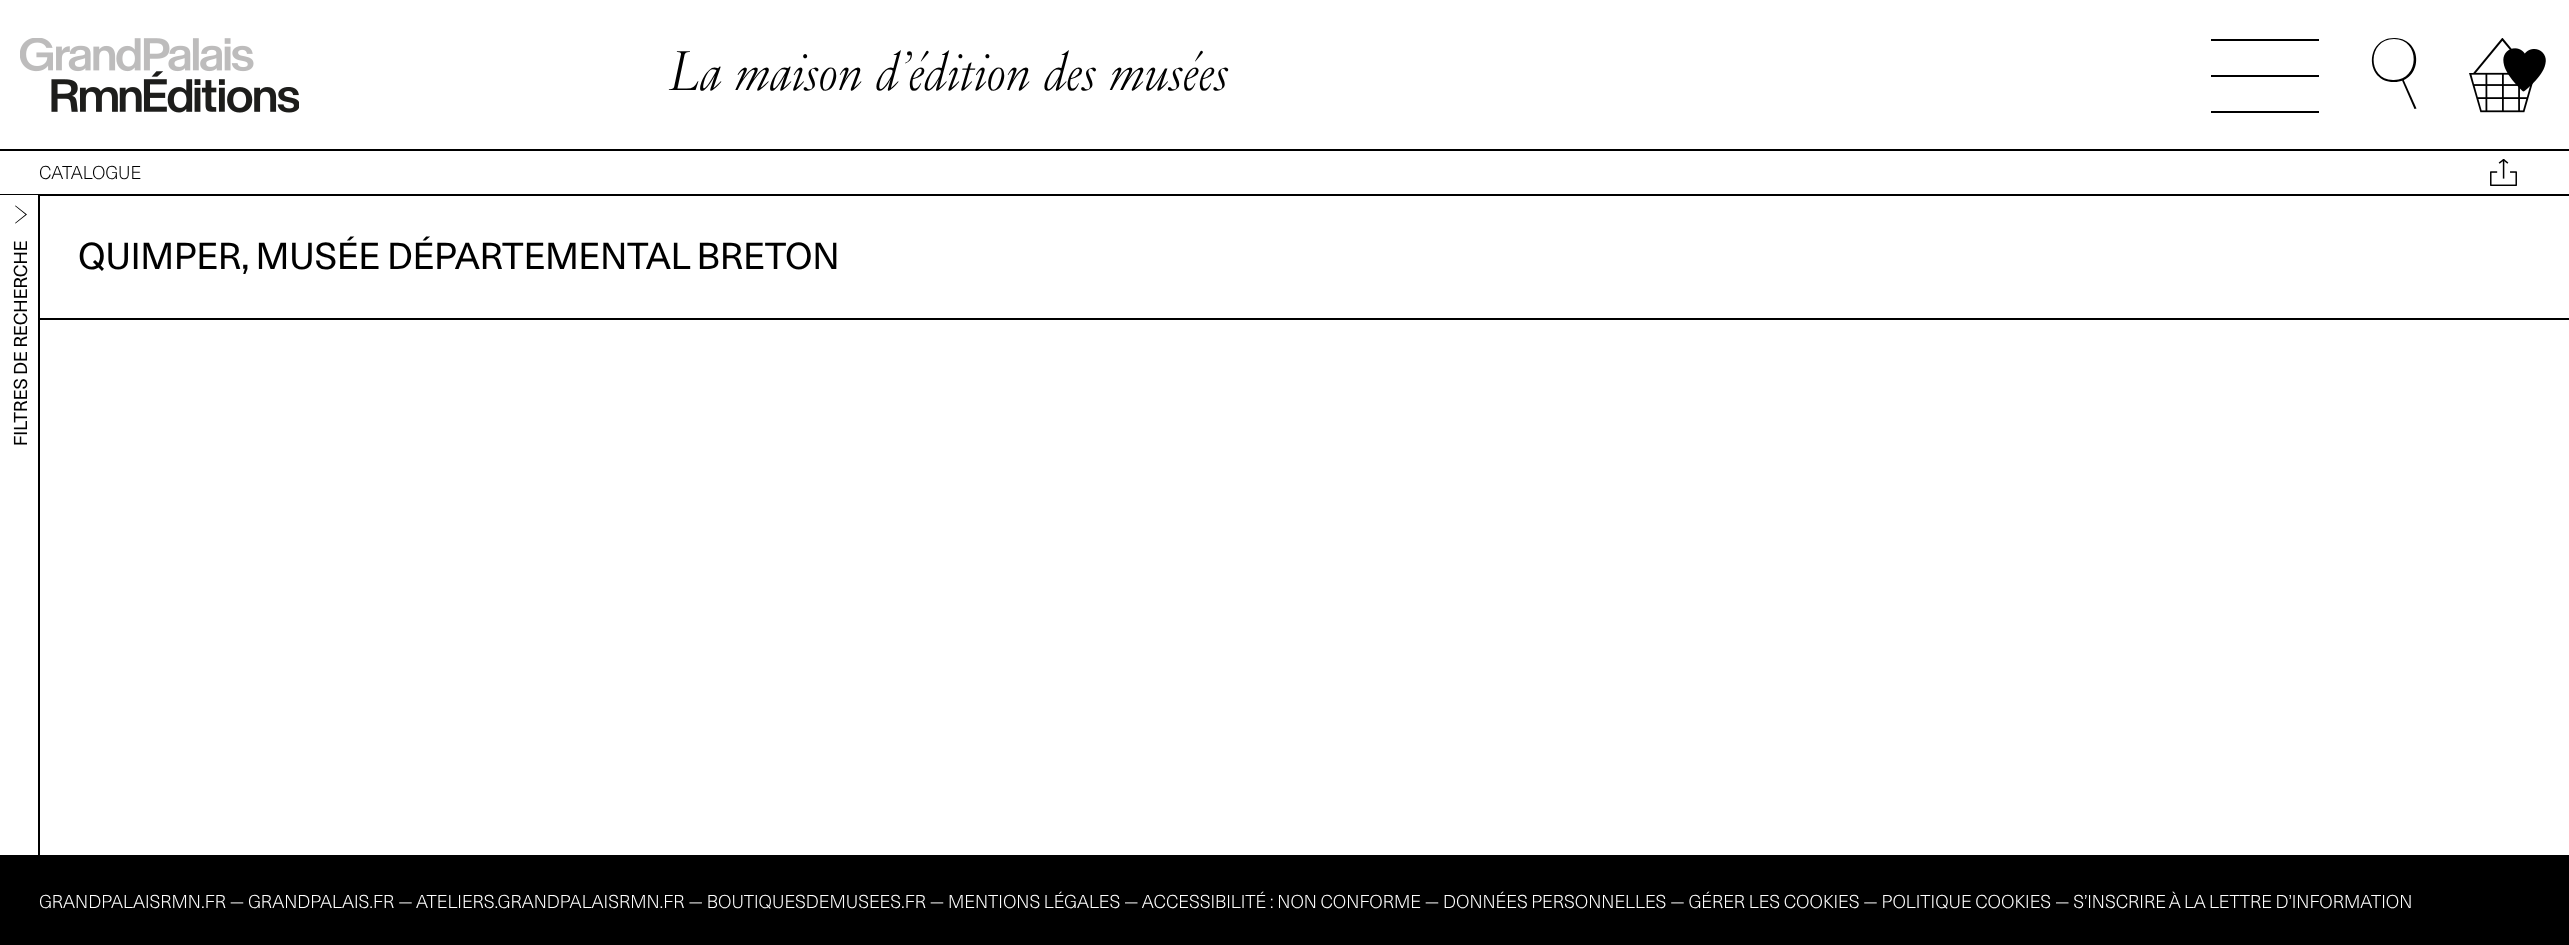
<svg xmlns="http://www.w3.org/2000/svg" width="2569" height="945">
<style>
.a{font:italic 54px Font;fill:#000}
.b{font:300 18px Font;fill:#000}
.c{font:18px Font;fill:#000}
.d{font:36px Font;fill:#000}
.e{font:300 18px Font;fill:#fff}
</style>
<rect width="100%" height="100%" fill="#fff"/>
<path fill="#000" d="M0 149h2569v2H0z"/>
<image href="1.png" x="20" y="38" width="279" height="75"/>
<path fill="#000" d="M2211 39h108v2H2211z"/>
<path fill="#000" d="M2211 75h108v2H2211z"/>
<path fill="#000" d="M2211 111h108v2H2211z"/>
<path fill="#000" d="M2394 82c-30 0-29-45 1-44c29 1 28 44-1 44zm0-43c-27 0-27 41-1 41c27 1 28-41 1-41z"/>
<path fill="#000" d="M2402 80.5l1.5-1l13 29l-2 .5z"/>
<image href="2.png" x="2469" y="38" width="77" height="75"/>
<image href="3.png" x="2490" y="159" width="27" height="27"/>
<path fill="#000" d="M0 194h2569v2H0z"/>
<path fill="#fff" d="M0 195h38v1H0z"/>
<path fill="#000" d="M39 318h2530v2H39z"/>
<path fill="#000" d="M38 195h2v660H38z"/>
<path fill="#000" d="M27 214.5l-11.5 9l-.5-.5l10.5-8.5l-10.5-8.5l.5-.5z"/>
<path fill="#000" d="M0 855h2569v90H0z"/>
<text class="a" x="668" y="90">La maison d’édition des musées</text>
<text class="b" x="39" y="179">CATALOGUE</text>
<text class="c" x="27" y="446" transform="rotate(-90 27 446)">FILTRES DE RECHERCHE</text>
<text class="d" x="78" y="269">QUIMPER, MUSÉE DÉPARTEMENTAL BRETON</text>
<text class="e" x="39" y="908">GRANDPALAISRMN.FR — GRANDPALAIS.FR — ATELIERS.GRANDPALAISRMN.FR — BOUTIQUESDEMUSEES.FR — MENTIONS LÉGALES — ACCESSIBILITÉ : NON CONFORME — DONNÉES PERSONNELLES — GÉRER LES COOKIES — POLITIQUE COOKIES — S’INSCRIRE À LA LETTRE D’INFORMATION</text>
</svg>
